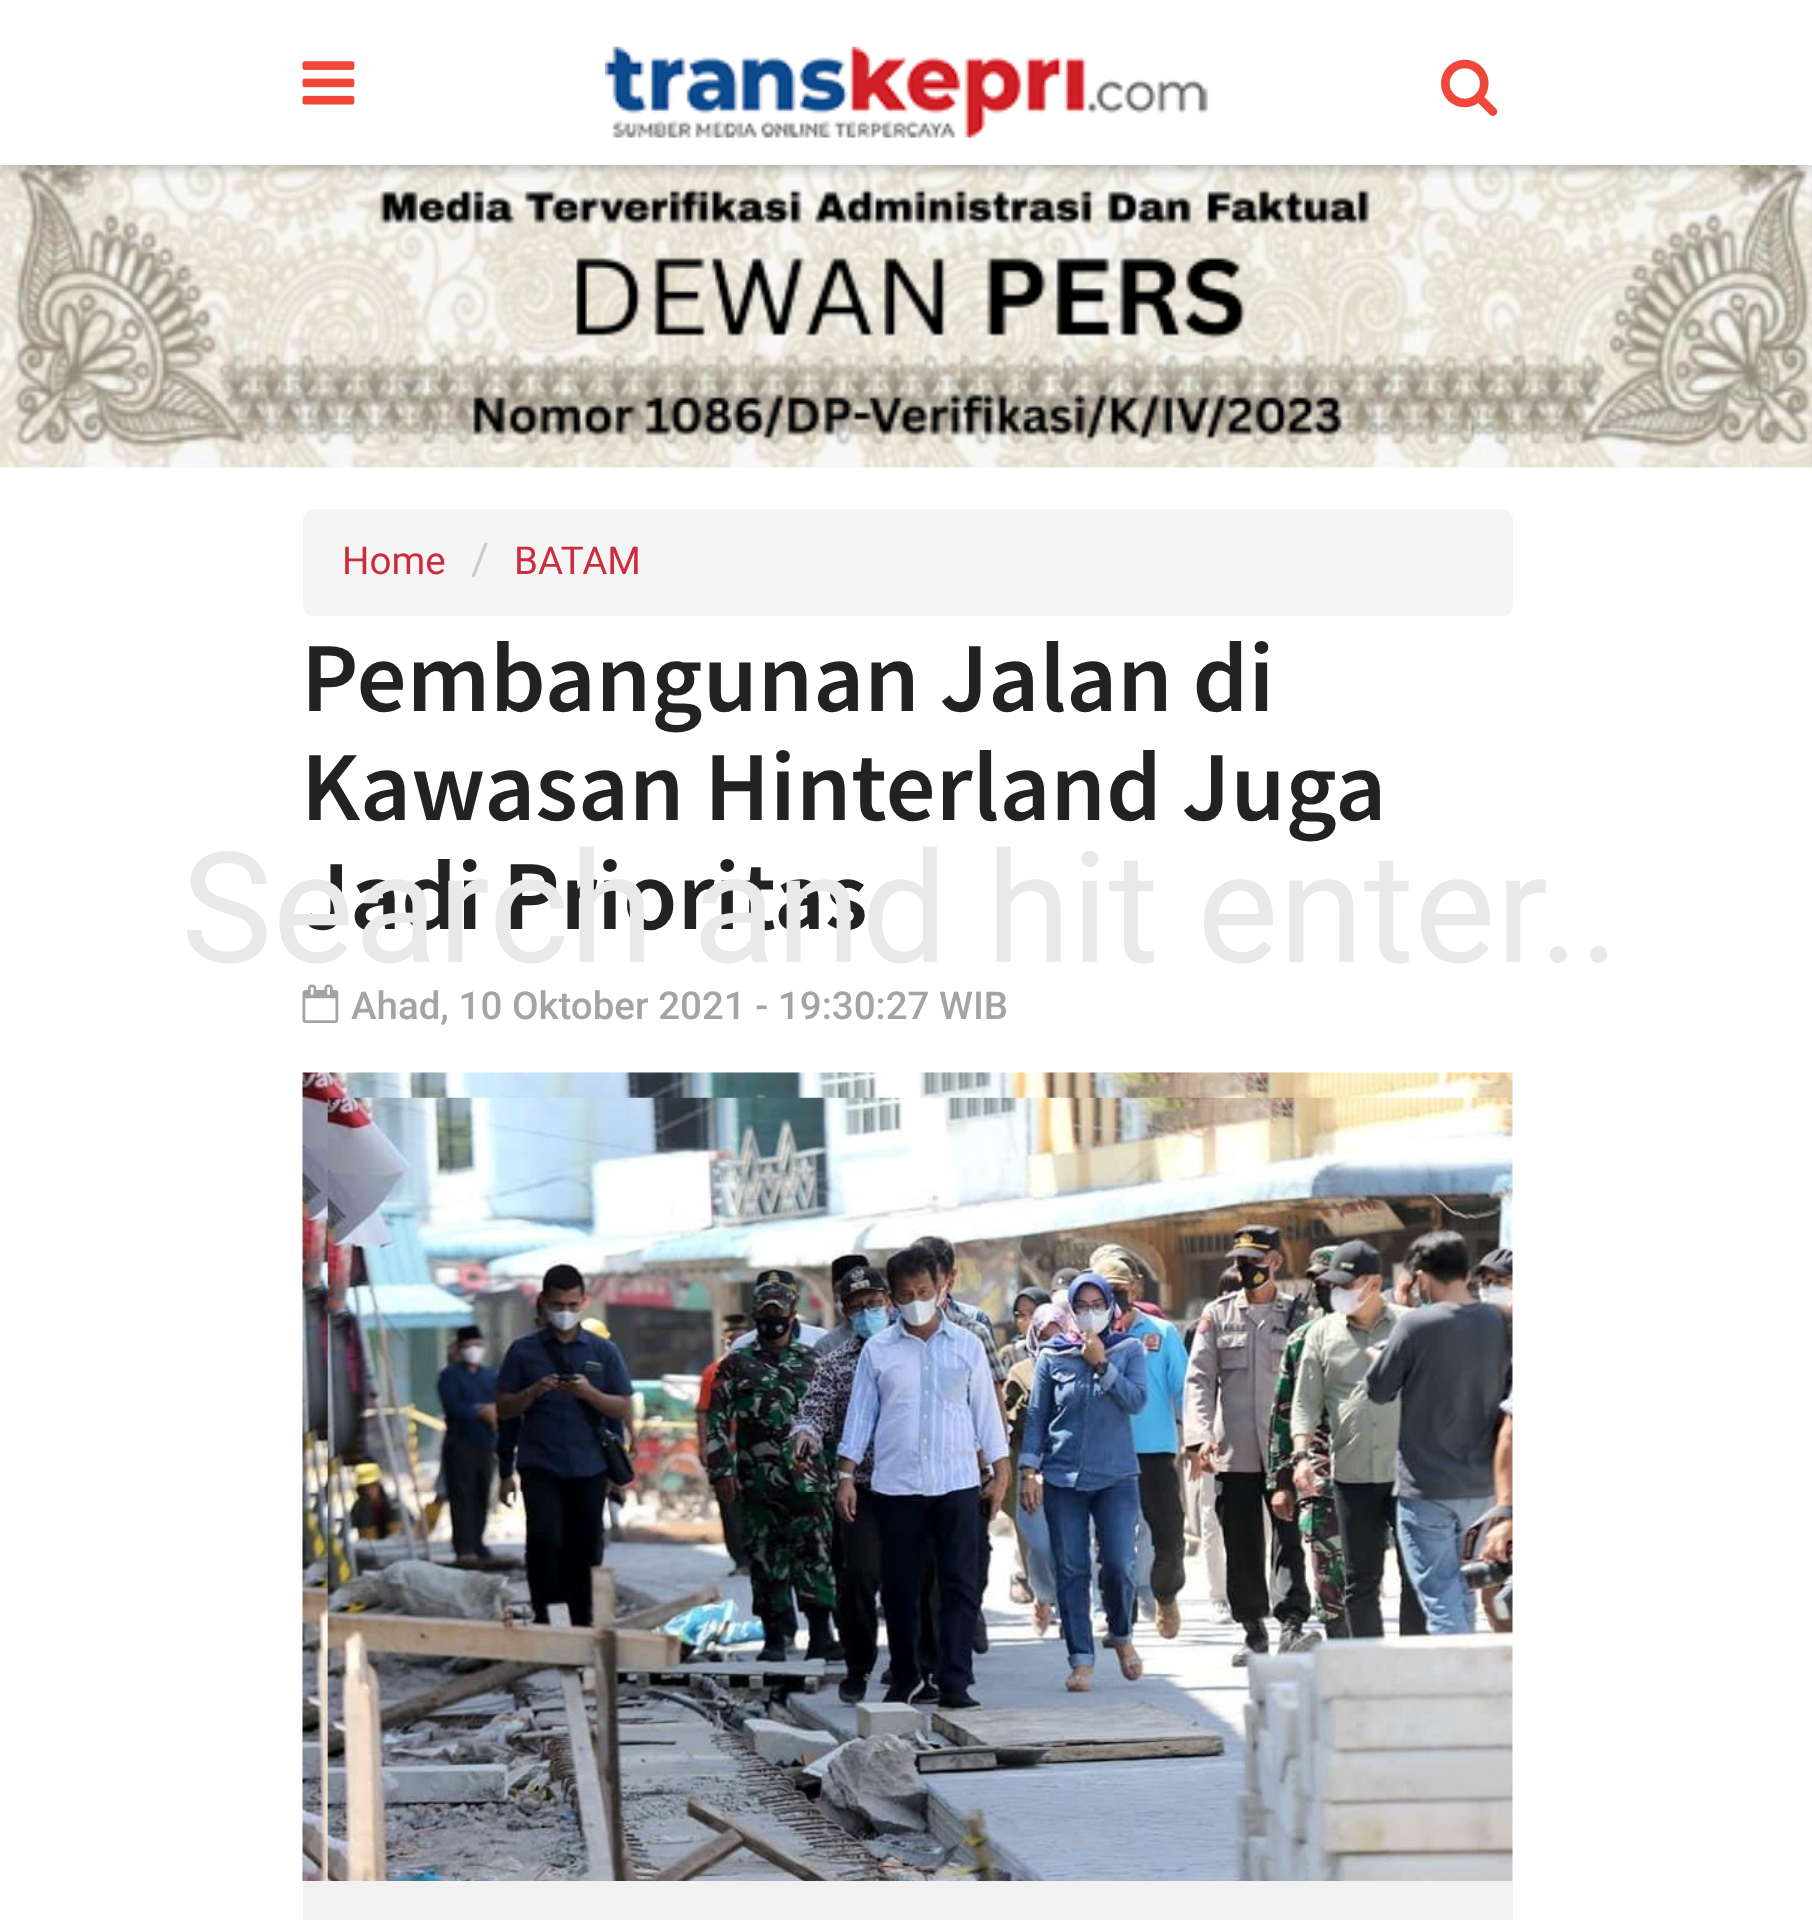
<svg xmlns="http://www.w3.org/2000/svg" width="1812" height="1920">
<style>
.a{font:38.5px Roboto;fill:#cb2d3e}
.b{font:44px Roboto;fill:#ccc}
.c{font:600 99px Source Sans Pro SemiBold;fill:#222}
.d{font:500 38.5px Roboto;fill:#a4a4a4}
.e{font:154px Roboto;fill:#e9e9e9}
</style>
<defs>
<clipPath id="clip1"><path d="M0 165h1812v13H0z"/></clipPath>
</defs>
<rect width="100%" height="100%" fill="#fff"/>
<image href="4.png" x="0" y="165" width="1812" height="303"/>
<g clip-path="url(#clip1)">
<path fill="#00000040" filter="blur(7px)" d="M0 3h1812v165H0z"/>
</g>
<image href="1.png" x="302" y="61" width="53" height="44"/>
<image href="2.png" x="605" y="46" width="604" height="92"/>
<image href="3.png" x="1441" y="59" width="57" height="57"/>
<rect fill="#f5f5f5" x="303" y="509" width="1210" height="107" rx="11"/>
<image href="5.png" x="302" y="984" width="37" height="39"/>
<image href="6.png" x="302" y="1072" width="1211" height="809"/>
<path fill="#f1f1f1" d="M303 1881h1210v39H303z"/>
<text class="a" x="342" y="574">Home</text>
<text class="b" x="471" y="574">/</text>
<text class="a" x="514" y="574">BATAM</text>
<text class="c" x="301" y="711">Pembangunan Jalan di</text>
<text class="c" x="301" y="820">Kawasan Hinterland Juga</text>
<text class="c" x="301" y="929">Jadi Prioritas</text>
<text class="d" x="351" y="1019">Ahad, 10 Oktober 2021 - 19:30:27 WIB</text>
<text class="e" x="181" y="962">Search and hit enter..</text>
</svg>
